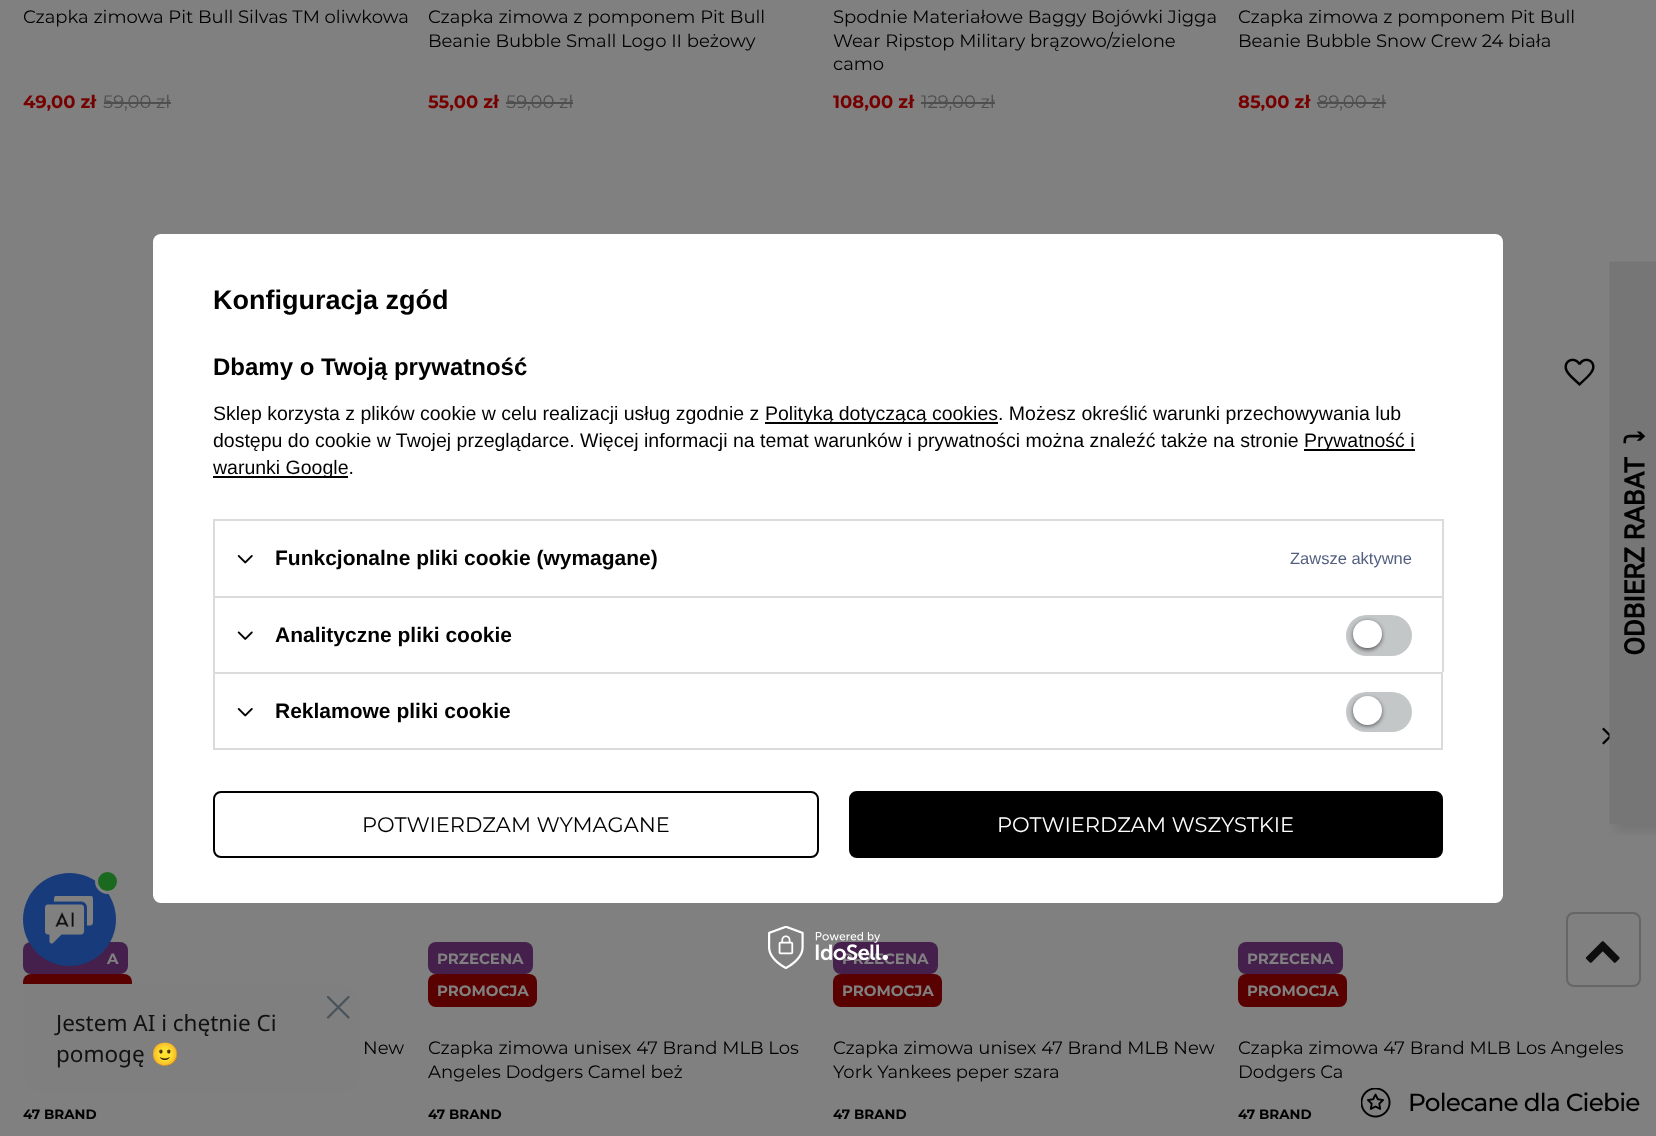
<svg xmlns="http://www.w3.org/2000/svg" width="1656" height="1136">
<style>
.a{font:18px Montserrat;fill:#000}
.b{font:bold 18px Montserrat;fill:#760000}
.c{font:18px Montserrat;fill:#4f4f4f}
.d{font:bold 15px Montserrat;fill:#808080}
.e{font:bold 13.5px Montserrat;fill:#000}
.f{font:bold 27px Liberation Sans;fill:#000}
.g{font:bold 24px Liberation Sans;fill:#000}
.h{font:19.5px Liberation Sans;fill:#000}
.i{font:bold 21px Liberation Sans;fill:#000}
.j{font:16.5px Liberation Sans;fill:#545f80}
.k{font:21px Montserrat;fill:#000}
.l{font:21px Montserrat;fill:#fff}
.m{font:22.5px Noto Sans;fill:#111}
.n{font:22.5px Noto Color Emoji;fill:#111}
.o{font:500 24.75px Montserrat;letter-spacing:-0.8px;fill:#000}
</style>
<rect width="100%" height="100%" fill="#808080"/>
<path fill="#4f4f4f" d="M104 102h67v2H104z"/>
<path fill="#4f4f4f" d="M506 102h67v2H506z"/>
<path fill="#4f4f4f" d="M921 102h74v2H921z"/>
<path fill="#4f4f4f" d="M1317 102h69v2H1317z"/>
<image href="1.png" x="1602" y="727" width="8" height="18"/>
<rect fill="#45204c" x="23" y="942" width="105" height="32" rx="8"/>
<rect fill="#590000" x="23" y="974" width="109" height="33" rx="8"/>
<rect fill="#45204c" x="428" y="942" width="105" height="32" rx="8"/>
<rect fill="#590000" x="428" y="974" width="109" height="33" rx="8"/>
<rect fill="#45204c" x="833" y="942" width="105" height="32" rx="8"/>
<rect fill="#590000" x="833" y="974" width="109" height="33" rx="8"/>
<image href="2.png" x="1564" y="358" width="31" height="28"/>
<rect fill="#45204c" x="1238" y="942" width="105" height="32" rx="8"/>
<rect fill="#590000" x="1238" y="974" width="109" height="33" rx="8"/>
<image href="3.png" x="1609" y="261" width="47" height="574"/>
<rect fill="#fff" x="153" y="234" width="1350" height="669" rx="8"/>
<path fill="#000" d="M765 422h233v2H765z"/>
<path fill="#000" d="M1304 449h111v2H1304z"/>
<path fill="#000" d="M213 476h135v2H213z"/>
<path fill="#dbdbdb" d="M213 519h1230v2H213z"/>
<path fill="#dbdbdb" d="M1442 519h2v77H1442z"/>
<path fill="#dbdbdb" d="M213 519h2v77H213z"/>
<image href="4.png" x="237" y="555" width="16" height="9"/>
<path fill="#dbdbdb" d="M213 596h1230v2H213z"/>
<path fill="#dbdbdb" d="M1442 596h2v76H1442z"/>
<path fill="#dbdbdb" d="M213 596h2v76H213z"/>
<image href="5.png" x="237" y="631" width="16" height="9"/>
<rect fill="#c4c7c8" x="1346" y="615" width="66" height="41" rx="20.5"/>
<rect fill="#0000008f" filter="blur(2px)" x="1353" y="621" width="29" height="29" rx="14.5"/>
<rect fill="#fff" x="1353" y="620" width="29" height="28" rx="14"/>
<path fill="none" stroke="#dbdbdb" stroke-width="2" d="M214 673h1228v76H214z"/>
<image href="4.png" x="237" y="708" width="16" height="9"/>
<rect fill="#c4c7c8" x="1346" y="692" width="66" height="40" rx="20"/>
<rect fill="#0000008f" filter="blur(2px)" x="1353" y="698" width="29" height="28" rx="14"/>
<circle fill="#fff" cx="1367.5" cy="710.5" r="14.5"/>
<rect fill="none" stroke="#000" stroke-width="2" x="214" y="792" width="604" height="65" rx="7"/>
<rect fill="#000" stroke="#000" stroke-width="2" x="850" y="792" width="592" height="65" rx="7"/>
<rect fill="none" stroke="#656767" stroke-width="2" x="1567" y="913" width="73" height="73" rx="7"/>
<image href="7.png" x="1585" y="941" width="35" height="22"/>
<path fill="#7f7f7f" d="M23 984h316c11.5 0 21 9.5 21 21v66c0 11.5-9.5 21-21 21h-295c-11.5 0-21-9.5-21-21z"/>
<path fill="none" stroke="#49535a" stroke-width="2.2" stroke-linecap="round" stroke-linejoin="round" d="M348.5 997l-20.5 20.5m0-20.5l20.5 20.5"/>
<image href="9.png" x="1361" y="1088" width="30" height="30"/>
<text class="a" x="23" y="23">Czapka zimowa Pit Bull Silvas TM oliwkowa</text>
<text class="b" x="23" y="108">49,00 zł</text>
<text class="c" x="103" y="108">59,00 zł</text>
<text class="a" x="428" y="23">Czapka zimowa z pomponem Pit Bull</text>
<text class="a" x="428" y="47">Beanie Bubble Small Logo II beżowy</text>
<text class="b" x="428" y="108">55,00 zł</text>
<text class="c" x="506" y="108">59,00 zł</text>
<text class="a" x="833" y="23">Spodnie Materiałowe Baggy Bojówki Jigga</text>
<text class="a" x="833" y="47">Wear Ripstop Military brązowo/zielone</text>
<text class="a" x="833" y="70">camo</text>
<text class="b" x="833" y="108">108,00 zł</text>
<text class="c" x="921" y="108">129,00 zł</text>
<text class="a" x="1238" y="23">Czapka zimowa z pomponem Pit Bull</text>
<text class="a" x="1238" y="47">Beanie Bubble Snow Crew 24 biała</text>
<text class="b" x="1238" y="108">85,00 zł</text>
<text class="c" x="1317" y="108">89,00 zł</text>
<text class="d" x="107" y="964">A</text>
<text class="a" x="363" y="1054">New</text>
<text class="e" x="23" y="1119">47 BRAND</text>
<text class="d" x="437" y="964">PRZECENA</text>
<text class="d" x="437" y="996">PROMOCJA</text>
<text class="a" x="428" y="1054">Czapka zimowa unisex 47 Brand MLB Los</text>
<text class="a" x="428" y="1078">Angeles Dodgers Camel beż</text>
<text class="e" x="428" y="1119">47 BRAND</text>
<text class="d" x="842" y="964">PRZECENA</text>
<text class="d" x="842" y="996">PROMOCJA</text>
<text class="a" x="833" y="1054">Czapka zimowa unisex 47 Brand MLB New</text>
<text class="a" x="833" y="1078">York Yankees peper szara</text>
<text class="e" x="833" y="1119">47 BRAND</text>
<text class="d" x="1247" y="964">PRZECENA</text>
<text class="d" x="1247" y="996">PROMOCJA</text>
<text class="a" x="1238" y="1054">Czapka zimowa 47 Brand MLB Los Angeles</text>
<text class="a" x="1238" y="1078">Dodgers Ca</text>
<text class="e" x="1238" y="1119">47 BRAND</text>
<text class="f" x="213" y="309">Konfiguracja zgód</text>
<text class="g" x="213" y="375">Dbamy o Twoją prywatność</text>
<text class="h" x="213" y="420">Sklep korzysta z plików cookie w celu realizacji usług zgodnie z</text>
<text class="h" x="765" y="420">Polityką dotyczącą cookies. Możesz określić warunki przechowywania lub</text>
<text class="h" x="213" y="447">dostępu do cookie w Twojej przeglądarce. Więcej informacji na temat warunków i prywatności można znaleźć także na stronie</text>
<text class="h" x="1304" y="447">Prywatność i</text>
<text class="h" x="213" y="474">warunki Google.</text>
<text class="i" x="275" y="565">Funkcjonalne pliki cookie (wymagane)</text>
<text class="j" x="1290" y="564">Zawsze aktywne</text>
<text class="i" x="275" y="642">Analityczne pliki cookie</text>
<text class="i" x="275" y="718">Reklamowe pliki cookie</text>
<text class="k" x="362" y="832">POTWIERDZAM WYMAGANE</text>
<text class="l" x="997" y="832">POTWIERDZAM WSZYSTKIE</text>
<image href="6.png" x="768" y="926" width="120" height="43"/>
<circle fill="#183b7c" cx="69.5" cy="919.5" r="46.5"/>
<circle fill="#1b681f" stroke="#808080" stroke-width="3" cx="107.5" cy="881.5" r="11"/>
<image href="8.png" x="45" y="896" width="48" height="48"/>
<text class="m" x="56" y="1031">Jestem AI i chętnie Ci</text>
<text class="m" x="56" y="1062">pomogę</text>
<text class="n" x="151" y="1062">🙂</text>
<text class="o" x="1408" y="1111">Polecane dla Ciebie</text>
</svg>
